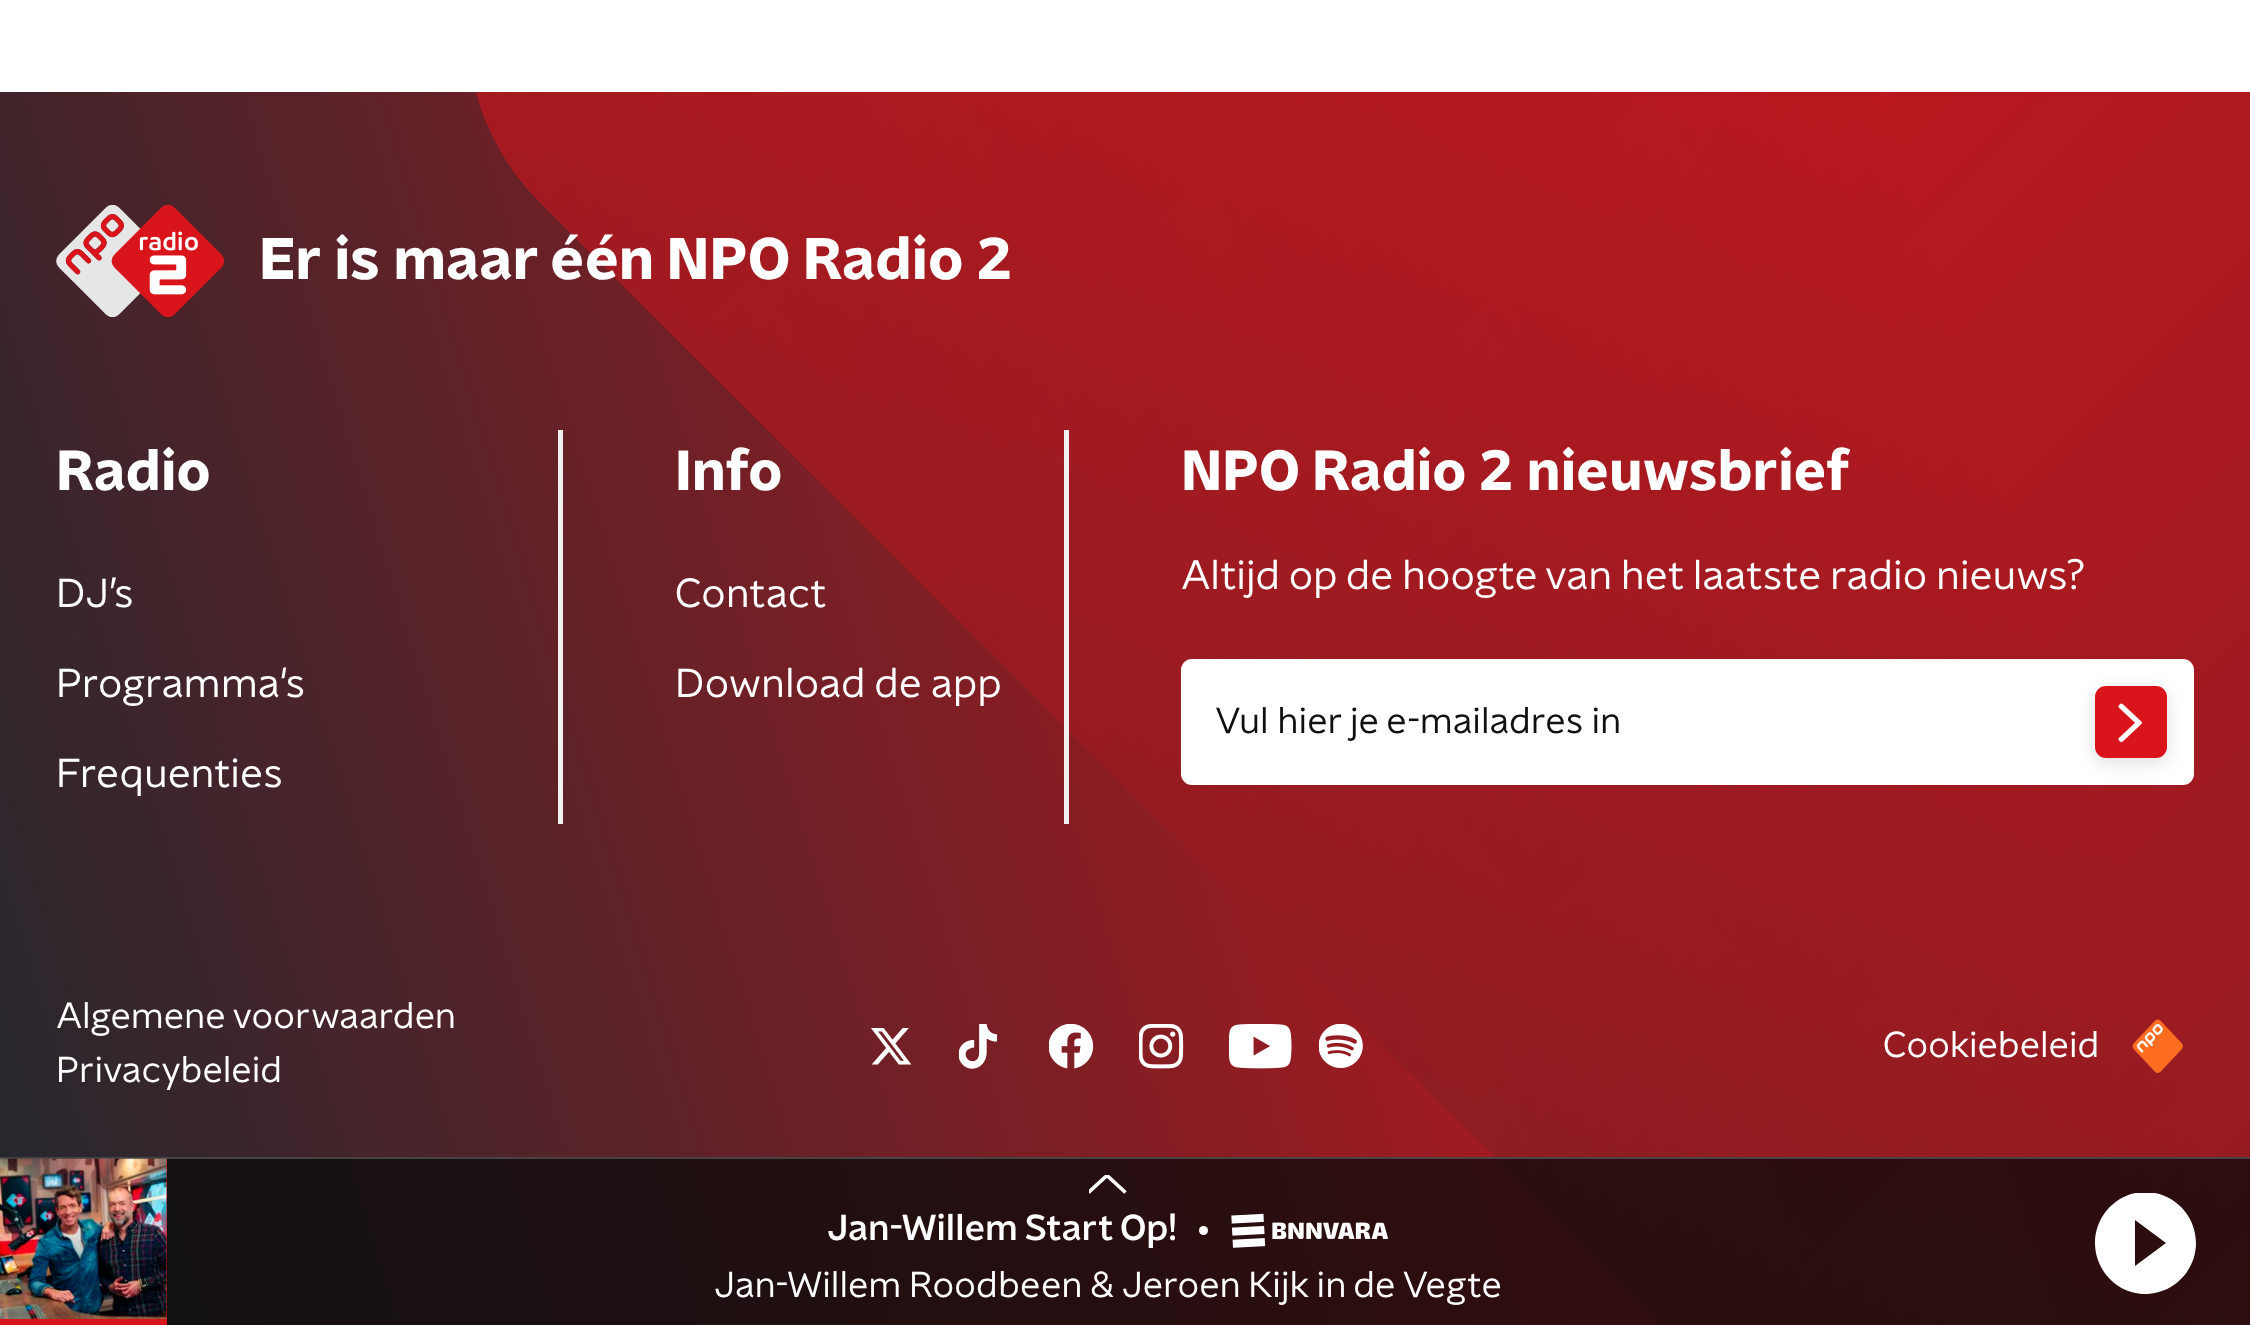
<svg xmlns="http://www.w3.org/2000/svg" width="2250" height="1325">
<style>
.a{font:bold 58.5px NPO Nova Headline;fill:#fff}
.b{font:bold 56.25px NPO Nova Headline;fill:#fff}
.c{font:40.5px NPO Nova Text;fill:#fff}
.d{font:36px NPO Nova Text;fill:#101010}
.e{font:36px NPO Nova Text;fill:#fff}
.f{font:500 36px NPO Nova Text;fill:#fff}
</style>
<defs>
<linearGradient id="g1" gradientUnits="userSpaceOnUse" x1="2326" y1="342" x2="-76" y2="1076"><stop offset="0.14" stop-color="#d9151b"/><stop offset="1" stop-color="#22282e"/></linearGradient>
<clipPath id="clip1"><path d="M1089 1175h41v20H1089z"/></clipPath>
<clipPath id="clip2"><path d="M2095 1193h101v101H2095z"/></clipPath>
</defs>
<rect width="100%" height="100%" fill="#fff"/>
<path fill="url(#g1)" d="M0 92h2250v1233H0z"/>
<image href="1.png" x="476" y="92" width="1774" height="1233"/>
<image href="2.png" x="56" y="205" width="169" height="112"/>
<path fill="#f1f1f1" d="M558 430h5v394H558z"/>
<path fill="#f1f1f1" d="M1064 430h5v394H1064z"/>
<rect fill="#fff" x="1181" y="659" width="1013" height="126" rx="11"/>
<rect fill="#0000001a" filter="blur(8px)" x="2093" y="689" width="76" height="76" rx="14"/>
<rect fill="#d9151b" x="2095" y="686" width="72" height="72" rx="11"/>
<image href="3.png" x="2118" y="703" width="24" height="40"/>
<image href="4.png" x="871" y="1028" width="41" height="37"/>
<image href="5.png" x="959" y="1024" width="38" height="45"/>
<image href="6.png" x="1049" y="1024" width="45" height="45"/>
<image href="7.png" x="1139" y="1024" width="45" height="45"/>
<image href="8.png" x="1229" y="1024" width="63" height="45"/>
<image href="9.png" x="1319" y="1024" width="44" height="44"/>
<image href="10.png" x="2132" y="1019" width="51" height="54"/>
<path fill="#090909bf" d="M0 1157h2250v168H0z"/>
<path fill="#5f5f5fa6" d="M0 1157h2250v2H0z"/>
<path fill="#d9151b" d="M166 1159h1v160H166z"/>
<image href="11.png" x="0" y="1158" width="167" height="161"/>
<path fill="#d9151b" d="M0 1319h167v6H0z"/>
<g clip-path="url(#clip1)">
<path fill="none" stroke="#fff" stroke-width="3.7" d="M1125.5 1192.5l-18.5-17l-18.5 17"/>
</g>
<circle fill="#fff" cx="1203.5" cy="1230.5" r="4.5"/>
<image href="12.png" x="1231" y="1213" width="157" height="35"/>
<g clip-path="url(#clip2)">
<path fill="#fff" d="M2145 1192c-27 0-50 23-50 51c0 28 23 51 50 51c28 0 51-23 51-51c0-28-23-51-51-51zm-10 74v-46l31 23z"/>
</g>
<text class="a" x="259" y="279">Er is maar één NPO Radio 2</text>
<text class="b" x="56" y="490">Radio</text>
<text class="c" x="56" y="607">DJ’s</text>
<text class="c" x="56" y="697">Programma's</text>
<text class="c" x="56" y="787">Frequenties</text>
<text class="b" x="675" y="490">Info</text>
<text class="c" x="675" y="607">Contact</text>
<text class="c" x="675" y="697">Download de app</text>
<text class="b" x="1181" y="490">NPO Radio 2 nieuwsbrief</text>
<text class="c" x="1181" y="589">Altijd op de hoogte van het laatste radio nieuws?</text>
<text class="d" x="1215" y="733">Vul hier je e-mailadres in</text>
<text class="e" x="56" y="1028">Algemene voorwaarden</text>
<text class="e" x="56" y="1082">Privacybeleid</text>
<text class="e" x="1883" y="1057">Cookiebeleid</text>
<text class="f" x="827" y="1240">Jan-Willem Start Op!</text>
<text class="e" x="714" y="1297">Jan-Willem Roodbeen &amp; Jeroen Kijk in de Vegte</text>
</svg>
